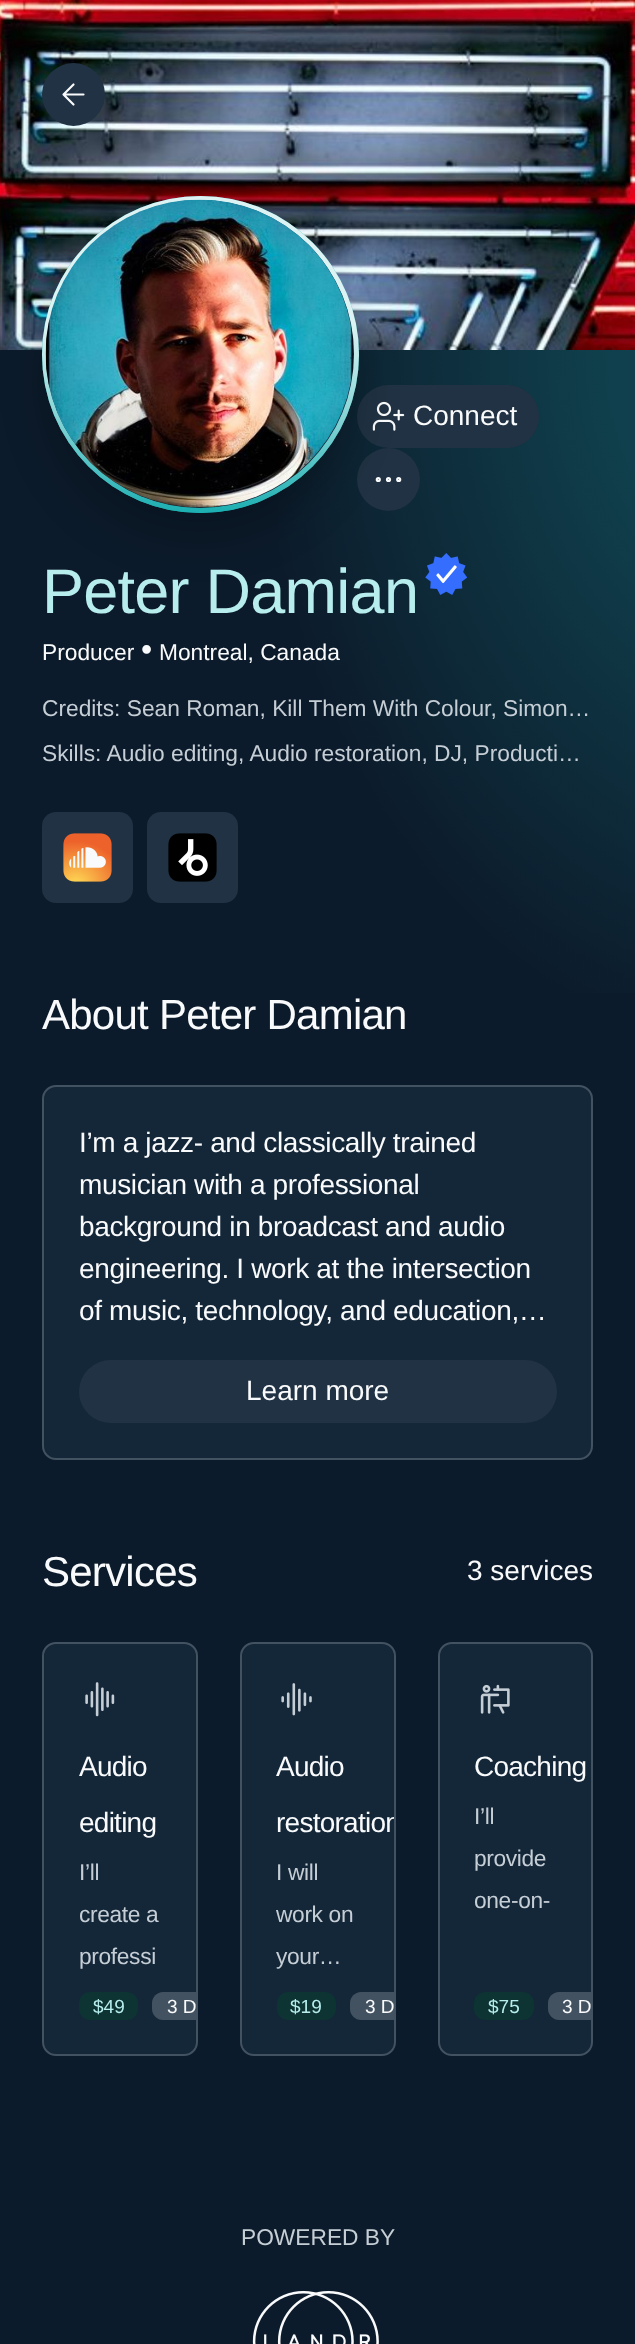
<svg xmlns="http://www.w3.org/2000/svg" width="635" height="2344">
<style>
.a{font:28px Liberation Sans;fill:#f9fafb}
.b{font:63px Liberation Sans;letter-spacing:-0.75px;fill:#b7eded}
.c{font:22.75px Liberation Sans;fill:#f9fafb}
.d{font:32px Liberation Sans;fill:#f9fafb}
.e{font:22.75px Liberation Sans;fill:#c5cdd5}
.f{font:42px Liberation Sans;letter-spacing:-0.75px;fill:#f9fafb}
.g{font:28px Liberation Sans;letter-spacing:-0.35px;fill:#f9fafb}
.h{font:28px Liberation Sans;letter-spacing:-0.75px;fill:#f9fafb}
.i{font:22.75px Liberation Sans;letter-spacing:-0.35px;fill:#c5cdd5}
.j{font:19px Liberation Sans;fill:#b7eded}
.k{font:19px Liberation Sans;fill:#f9fafb}
</style>
<defs>
<radialGradient id="g1" gradientUnits="userSpaceOnUse" cx="0" cy="0" r="1" gradientTransform="matrix(508 0 0 700 762 350)"><stop offset="0.3" stop-color="#10404d"/><stop offset="1" stop-color="#0c1b2b"/></radialGradient>
<linearGradient id="g2" gradientUnits="userSpaceOnUse" x1="200" y1="196" x2="200" y2="513"><stop offset="0.4" stop-color="#fff" stop-opacity="0.85"/><stop offset="1" stop-color="#1baeb1"/></linearGradient>
<clipPath id="clip1"><rect x="242" y="1643" width="152" height="412" rx="12"/></clipPath>
</defs>
<rect width="100%" height="100%" fill="#0c1b2b"/>
<image href="1.png" x="0" y="0" width="635" height="350"/>
<circle fill="#203243" cx="73.5" cy="94.5" r="31.5"/>
<path fill="none" stroke="#f9fafb" stroke-width="2.2" stroke-linecap="round" stroke-linejoin="round" d="M73.5 104.5l-10-10l10-10m10 10h-20"/>
<path fill="url(#g1)" d="M278 350h357v643H278z"/>
<rect fill="#203243" x="357" y="385" width="182" height="63" rx="31.5"/>
<image href="3.png" x="372" y="401" width="33" height="30"/>
<circle fill="#203243" cx="388.5" cy="479.5" r="31.5"/>
<circle fill="none" stroke="#f9fafb" stroke-width="2.2" cx="388.5" cy="479.5" r="1.5"/>
<circle fill="none" stroke="#f9fafb" stroke-width="2.2" cx="398.7" cy="479.5" r="1.5"/>
<circle fill="none" stroke="#f9fafb" stroke-width="2.2" cx="378.3" cy="479.5" r="1.5"/>
<rect fill="#0000003d" filter="blur(21px)" x="42" y="224" width="315" height="315" rx="157.5"/>
<circle fill="#1baeb1" cx="200.5" cy="354.5" r="158.5"/>
<circle fill="url(#g2)" cx="200.5" cy="354.5" r="158.5"/>
<circle fill="#102132" cx="200" cy="354" r="154"/>
<image href="2.png" x="45" y="199" width="308" height="309"/>
<image href="4.png" x="425" y="553" width="42" height="42"/>
<rect fill="#203243" x="42" y="812" width="91" height="91" rx="14"/>
<image href="5.png" x="63" y="833" width="49" height="49"/>
<rect fill="#203243" x="147" y="812" width="91" height="91" rx="14"/>
<image href="6.png" x="168" y="833" width="49" height="49"/>
<rect fill="#142739" stroke="#435261" stroke-width="2" x="43" y="1086" width="549" height="373" rx="13"/>
<rect fill="#203243" x="79" y="1360" width="478" height="63" rx="31.5"/>
<rect fill="#142739" stroke="#435261" stroke-width="2" x="43" y="1643" width="154" height="412" rx="13"/>
<image href="7.png" x="85" y="1682" width="30" height="35"/>
<rect fill="#0d3333" x="79" y="1992" width="59" height="28" rx="11"/>
<path fill="#435261" d="M163 1992h33v28h-33c-6 0-11-5-11-11v-6c0-6 5-11 11-11z"/>
<rect fill="#142739" stroke="#435261" stroke-width="2" x="241" y="1643" width="154" height="412" rx="13"/>
<image href="8.png" x="281" y="1683" width="31" height="33"/>
<rect fill="#0d3333" x="277" y="1992" width="59" height="28" rx="11"/>
<path fill="#435261" d="M361 1992h33v28h-33c-6 0-11-5-11-11v-6c0-6 5-11 11-11z"/>
<rect fill="#142739" stroke="#435261" stroke-width="2" x="439" y="1643" width="153" height="412" rx="13"/>
<image href="9.png" x="480" y="1684" width="30" height="30"/>
<rect fill="#0d3333" x="474" y="1992" width="60" height="28" rx="11"/>
<path fill="#435261" d="M559 1992h33v28h-33c-6 0-11-5-11-11v-6c0-6 5-11 11-11z"/>
<image href="10.png" x="252" y="2290" width="127" height="54"/>
<text class="a" x="413" y="425">Connect</text>
<text class="b" x="42" y="613">Peter Damian</text>
<text class="c" x="42" y="660">Producer</text>
<text class="d" x="141" y="660">•</text>
<text class="c" x="159" y="660">Montreal, Canada</text>
<text class="e" x="42" y="716">Credits: Sean Roman, Kill Them With Colour, Simon…</text>
<text class="e" x="42" y="761">Skills: Audio editing, Audio restoration, DJ, Producti…</text>
<text class="f" x="42" y="1029">About Peter Damian</text>
<text class="g" x="79" y="1152">I’m a jazz- and classically trained</text>
<text class="g" x="79" y="1194">musician with a professional</text>
<text class="g" x="79" y="1236">background in broadcast and audio</text>
<text class="g" x="79" y="1278">engineering. I work at the intersection</text>
<text class="g" x="79" y="1320">of music, technology, and education,…</text>
<text class="a" x="246" y="1400">Learn more</text>
<text class="f" x="42" y="1586">Services</text>
<text class="a" x="467" y="1580">3 services</text>
<text class="h" x="79" y="1776">Audio</text>
<text class="h" x="79" y="1832">editing</text>
<text class="i" x="79" y="1880">I’ll</text>
<text class="i" x="79" y="1922">create a</text>
<text class="i" x="79" y="1964">professi</text>
<text class="j" x="93" y="2013">$49</text>
<text class="k" x="167" y="2013">3 D</text>
<text class="h" x="276" y="1776">Audio</text>
<g clip-path="url(#clip1)">
<text class="h" x="276" y="1832">restoration</text>
</g>
<text class="i" x="276" y="1880">I will</text>
<text class="i" x="276" y="1922">work on</text>
<text class="i" x="276" y="1964">your…</text>
<text class="j" x="290" y="2013">$19</text>
<text class="k" x="365" y="2013">3 D</text>
<text class="h" x="474" y="1776">Coaching</text>
<text class="i" x="474" y="1824">I’ll</text>
<text class="i" x="474" y="1866">provide</text>
<text class="i" x="474" y="1908">one-on-</text>
<text class="j" x="488" y="2013">$75</text>
<text class="k" x="562" y="2013">3 D</text>
<text class="e" x="241" y="2245">POWERED BY</text>
</svg>
